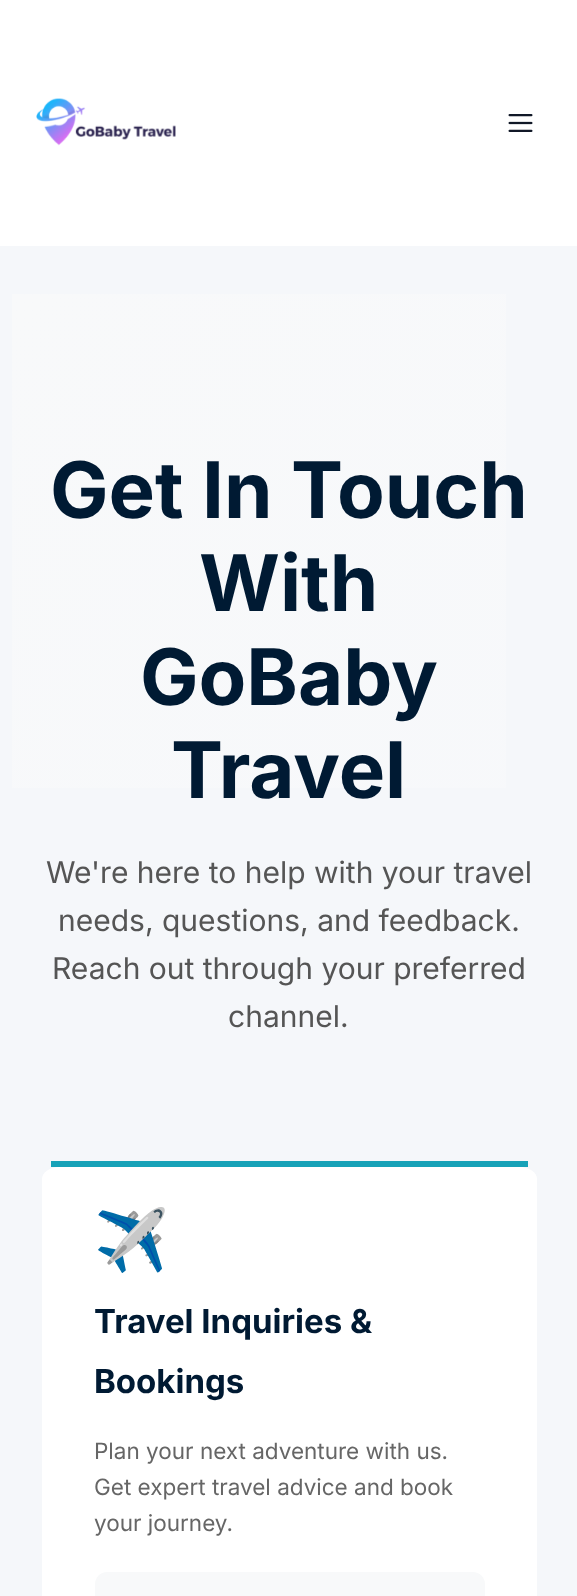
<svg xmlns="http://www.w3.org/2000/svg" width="577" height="1596">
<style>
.a{font:bold 78px Inter;fill:#001a33}
.b{font:30px Inter;fill:#555}
.c{font:60px Noto Color Emoji;fill:#000}
.d{font:bold 33px Inter;fill:#001a33}
.e{font:22.5px Inter;fill:#666}
</style>
<defs>
<linearGradient id="g1" gradientUnits="userSpaceOnUse" x1="-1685" y1="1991" x2="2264" y2="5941"><stop offset="0" stop-color="#f8f9fa"/><stop offset="1" stop-color="#f0f4ff"/></linearGradient>
</defs>
<rect width="100%" height="100%" fill="#fff"/>
<image href="1.png" x="36" y="98" width="140" height="48"/>
<image href="2.png" x="508" y="114" width="25" height="18"/>
<path fill="#f5f7fa" d="M0 246h577v1350H0z"/>
<path fill="url(#g1)" d="M12 294h494v494H12z"/>
<path fill="#fff" d="M60 1167h459c10 0 18 5 18 12v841c0 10-8 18-18 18h-459c-10 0-18-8-18-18v-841c0-7 8-12 18-12z"/>
<path fill="#17a2b8" d="M51 1161h477v6H51z"/>
<path fill="#f8f9fa" d="M107 1572h366c6.5 0 12 5.5 12 12v12h-390v-12c0-6.5 5.5-12 12-12z"/>
<text class="a" x="50" y="518">Get In Touch</text>
<text class="a" x="199" y="611">With</text>
<text class="a" x="140" y="705">GoBaby</text>
<text class="a" x="171" y="798">Travel</text>
<text class="b" x="46" y="883">We're here to help with your travel</text>
<text class="b" x="58" y="931">needs, questions, and feedback.</text>
<text class="b" x="52" y="979">Reach out through your preferred</text>
<text class="b" x="228" y="1027">channel.</text>
<text class="c" x="94" y="1261">✈️</text>
<text class="d" x="94" y="1333">Travel Inquiries &amp;</text>
<text class="d" x="94" y="1393">Bookings</text>
<text class="e" x="94" y="1459">Plan your next adventure with us.</text>
<text class="e" x="94" y="1495">Get expert travel advice and book</text>
<text class="e" x="94" y="1531">your journey.</text>
</svg>
